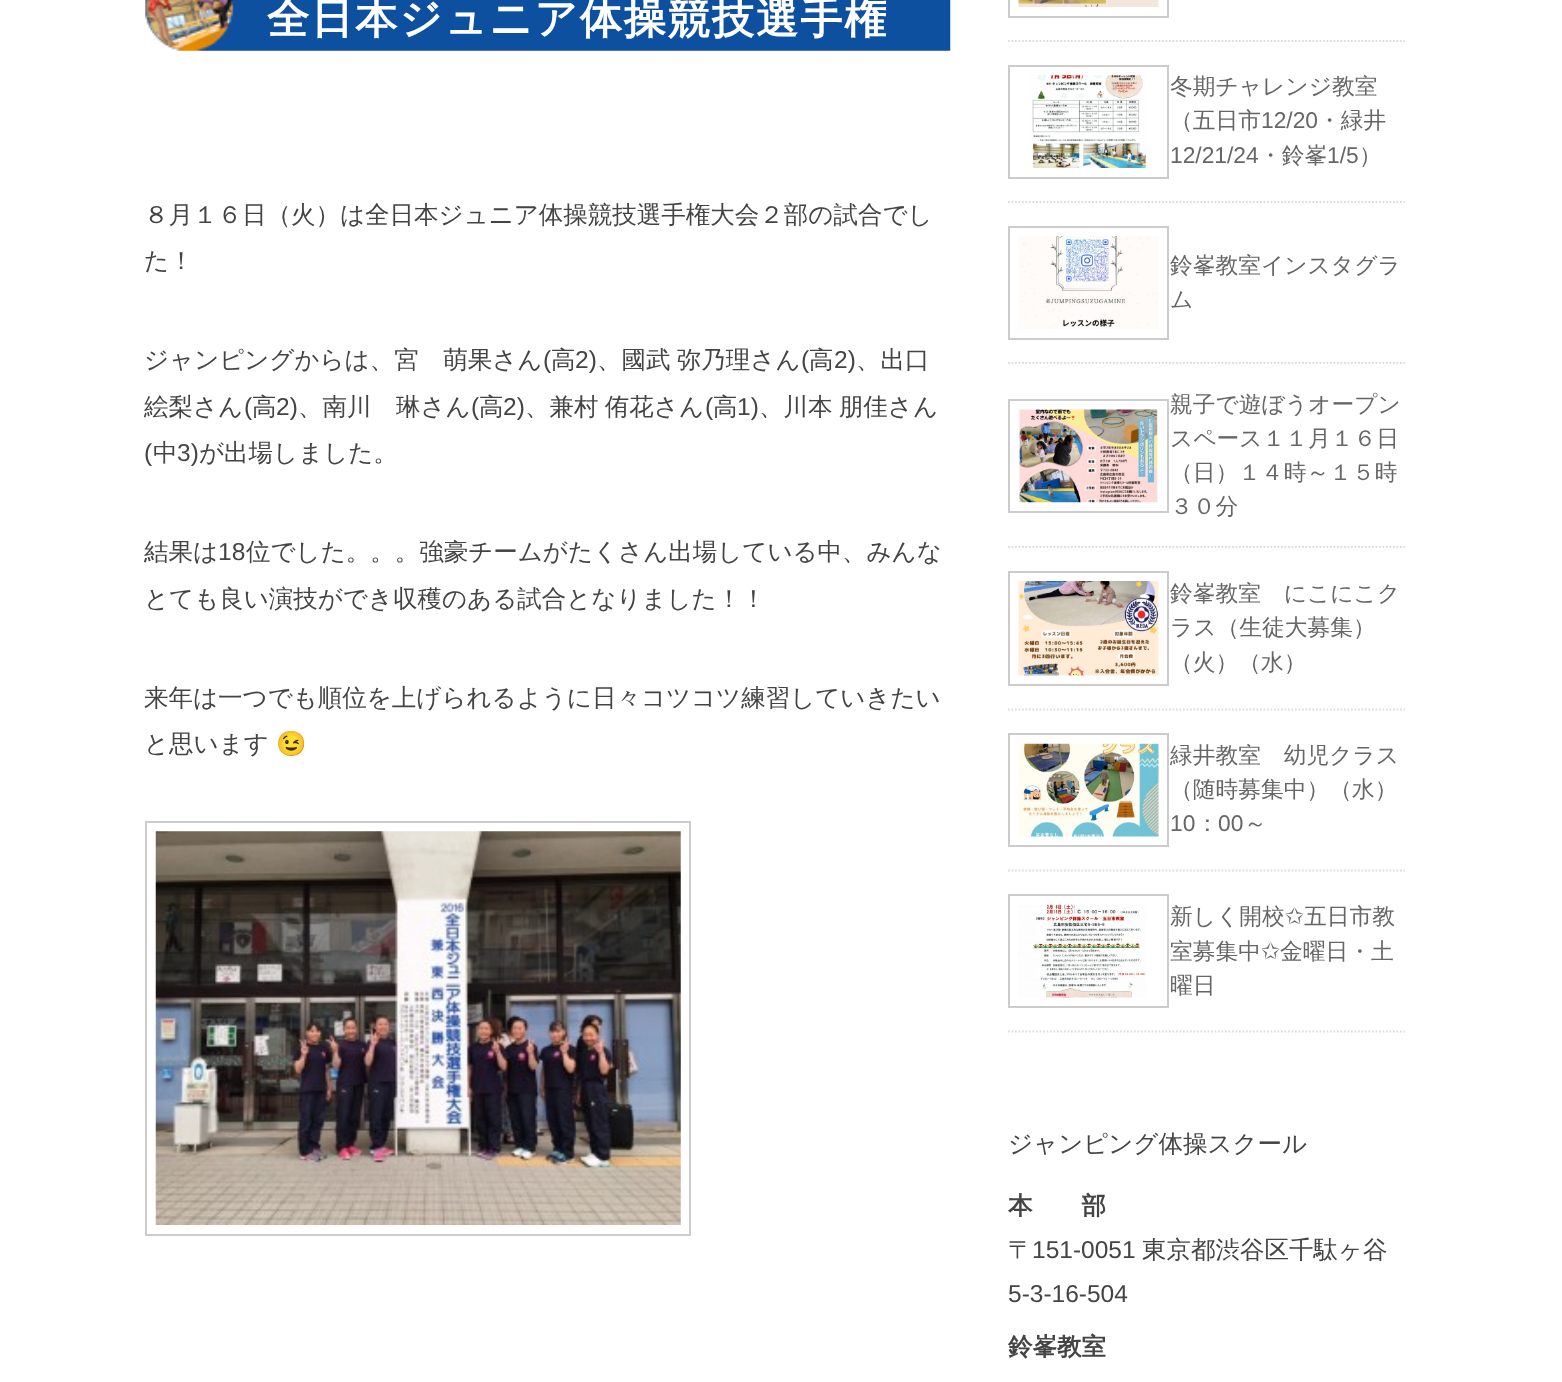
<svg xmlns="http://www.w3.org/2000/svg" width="1562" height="1382">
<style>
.a{font:bold 42px WenQuanYi Zen Hei;letter-spacing:2.1px;fill:#fff}
.b{font:500 24.5px WenQuanYi Zen Hei;fill:#444}
.c{font:24.5px Liberation Sans;fill:#444}
.d{font:24.5px Noto Color Emoji;fill:#444}
.e{font:500 22.75px WenQuanYi Zen Hei;fill:#666}
.f{font:22.75px Liberation Sans;fill:#666}
.g{font:22.75px DejaVu Sans;fill:#666}
.h{font:bold 24.5px WenQuanYi Zen Hei;fill:#444}
</style>
<rect width="100%" height="100%" fill="#fff"/>
<image href="1.png" x="145" y="0" width="806" height="51"/>
<path fill="none" stroke="#ccc" stroke-width="2" d="M146 822h544v413H146z"/>
<image href="2.png" x="155" y="831" width="526" height="394"/>
<path fill="none" stroke="#ddd" stroke-width="1.8" stroke-dasharray="1.75 1.75" d="M1008 41h397"/>
<path fill="none" stroke="#ccc" stroke-width="2" d="M1009 -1h159v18H1009z"/>
<image href="3.png" x="1018" y="0" width="141" height="7"/>
<path fill="none" stroke="#ddd" stroke-width="1.8" stroke-dasharray="1.75 1.75" d="M1008 202h397"/>
<path fill="none" stroke="#ccc" stroke-width="2" d="M1009 66h159v112H1009z"/>
<image href="4.png" x="1029" y="75" width="118" height="93"/>
<path fill="none" stroke="#ddd" stroke-width="1.8" stroke-dasharray="1.75 1.75" d="M1008 363h397"/>
<path fill="none" stroke="#ccc" stroke-width="2" d="M1009 227h159v112H1009z"/>
<image href="5.png" x="1018" y="236" width="141" height="93"/>
<path fill="none" stroke="#ddd" stroke-width="1.8" stroke-dasharray="1.75 1.75" d="M1008 547h397"/>
<path fill="none" stroke="#ccc" stroke-width="2" d="M1009 400h159v112H1009z"/>
<image href="6.png" x="1019" y="409" width="139" height="94"/>
<path fill="none" stroke="#ddd" stroke-width="1.8" stroke-dasharray="1.75 1.75" d="M1008 709.5h397"/>
<path fill="none" stroke="#ccc" stroke-width="2" d="M1009 572h159v113H1009z"/>
<image href="7.png" x="1018" y="581" width="141" height="95"/>
<path fill="none" stroke="#ddd" stroke-width="1.8" stroke-dasharray="1.75 1.75" d="M1008 870.5h397"/>
<path fill="none" stroke="#ccc" stroke-width="2" d="M1009 734h159v112H1009z"/>
<image href="8.png" x="1018" y="743" width="141" height="94"/>
<path fill="none" stroke="#ddd" stroke-width="1.8" stroke-dasharray="1.75 1.75" d="M1008 1031.5h397"/>
<path fill="none" stroke="#ccc" stroke-width="2" d="M1009 895h159v112H1009z"/>
<image href="9.png" x="1018" y="904" width="129" height="94"/>
<text class="a" x="267" y="33">全日本ジュニア体操競技選手権</text>
<text class="b" x="144" y="223">８月１６日（火）は全日本ジュニア体操競技選手権大会２部の試合でし</text>
<text class="b" x="144" y="269">た！</text>
<text class="b" x="144" y="368">ジャンピングからは、宮　萌果さん</text>
<text class="c" x="543" y="368">(</text>
<text class="b" x="551" y="368">高</text>
<text class="c" x="575" y="368">2)</text>
<text class="b" x="597" y="368" word-spacing="-1">、國武 弥乃理さん</text>
<text class="c" x="801" y="368">(</text>
<text class="b" x="809" y="368">高</text>
<text class="c" x="834" y="368">2)</text>
<text class="b" x="856" y="368">、出口</text>
<text class="b" x="144" y="415">絵梨さん</text>
<text class="c" x="244" y="415">(</text>
<text class="b" x="252" y="415">高</text>
<text class="c" x="276" y="415">2)</text>
<text class="b" x="298" y="415">、南川　琳さん</text>
<text class="c" x="471" y="415">(</text>
<text class="b" x="479" y="415">高</text>
<text class="c" x="503" y="415">2)</text>
<text class="b" x="525" y="415" word-spacing="-1">、兼村 侑花さん</text>
<text class="c" x="705" y="415">(</text>
<text class="b" x="713" y="415">高</text>
<text class="c" x="737" y="415">1)</text>
<text class="b" x="759" y="415" word-spacing="-1">、川本 朋佳さん</text>
<text class="c" x="144" y="461">(</text>
<text class="b" x="153" y="461">中</text>
<text class="c" x="177" y="461">3)</text>
<text class="b" x="199" y="461">が出場しました。</text>
<text class="b" x="144" y="560">結果は</text>
<text class="c" x="218" y="560">18</text>
<text class="b" x="246" y="560">位でした。。。強豪チームがたくさん出場している中、みんな</text>
<text class="b" x="144" y="607">とても良い演技ができ収穫のある試合となりました！！</text>
<text class="b" x="144" y="706">来年は一つでも順位を上げられるように日々コツコツ練習していきたい</text>
<text class="b" x="144" y="752">と思います</text>
<text class="d" x="276" y="752">😉</text>
<text class="e" x="1170" y="94">冬期チャレンジ教室</text>
<text class="e" x="1170" y="128">（五日市</text>
<text class="f" x="1261" y="128">12/20</text>
<text class="e" x="1318" y="128">・緑井</text>
<text class="f" x="1170" y="163">12/21/24</text>
<text class="e" x="1259" y="163">・鈴峯</text>
<text class="f" x="1327" y="163">1/5</text>
<text class="e" x="1359" y="163">）</text>
<text class="e" x="1170" y="273">鈴峯教室インスタグラ</text>
<text class="e" x="1170" y="307">ム</text>
<text class="e" x="1170" y="412">親子で遊ぼうオープン</text>
<text class="e" x="1170" y="446">スペース１１月１６日</text>
<text class="e" x="1170" y="480">（日）１４時～１５時</text>
<text class="e" x="1170" y="514">３０分</text>
<text class="e" x="1170" y="601">鈴峯教室　にこにこク</text>
<text class="e" x="1170" y="635">ラス（生徒大募集）</text>
<text class="e" x="1170" y="670">（火）（水）</text>
<text class="e" x="1170" y="763">緑井教室　幼児クラス</text>
<text class="e" x="1170" y="797">（随時募集中）（水）</text>
<text class="f" x="1170" y="831">10</text>
<text class="e" x="1196" y="831">：</text>
<text class="f" x="1218" y="831">00</text>
<text class="e" x="1244" y="831">～</text>
<text class="e" x="1170" y="924">新しく開校</text>
<text class="g" x="1285" y="924">✩</text>
<text class="e" x="1304" y="924">五日市教</text>
<text class="e" x="1170" y="959">室募集中</text>
<text class="g" x="1261" y="959">✩</text>
<text class="e" x="1280" y="959">金曜日・土</text>
<text class="e" x="1170" y="993">曜日</text>
<text class="b" x="1008" y="1152">ジャンピング体操スクール</text>
<text class="h" x="1008" y="1214">本　　部</text>
<text class="b" x="1008" y="1258">〒</text>
<text class="c" x="1032" y="1258">151-0051</text>
<text class="b" x="1142" y="1258">東京都渋谷区千駄ヶ谷</text>
<text class="c" x="1008" y="1302">5-3-16-504</text>
<text class="h" x="1008" y="1355">鈴峯教室</text>
</svg>
